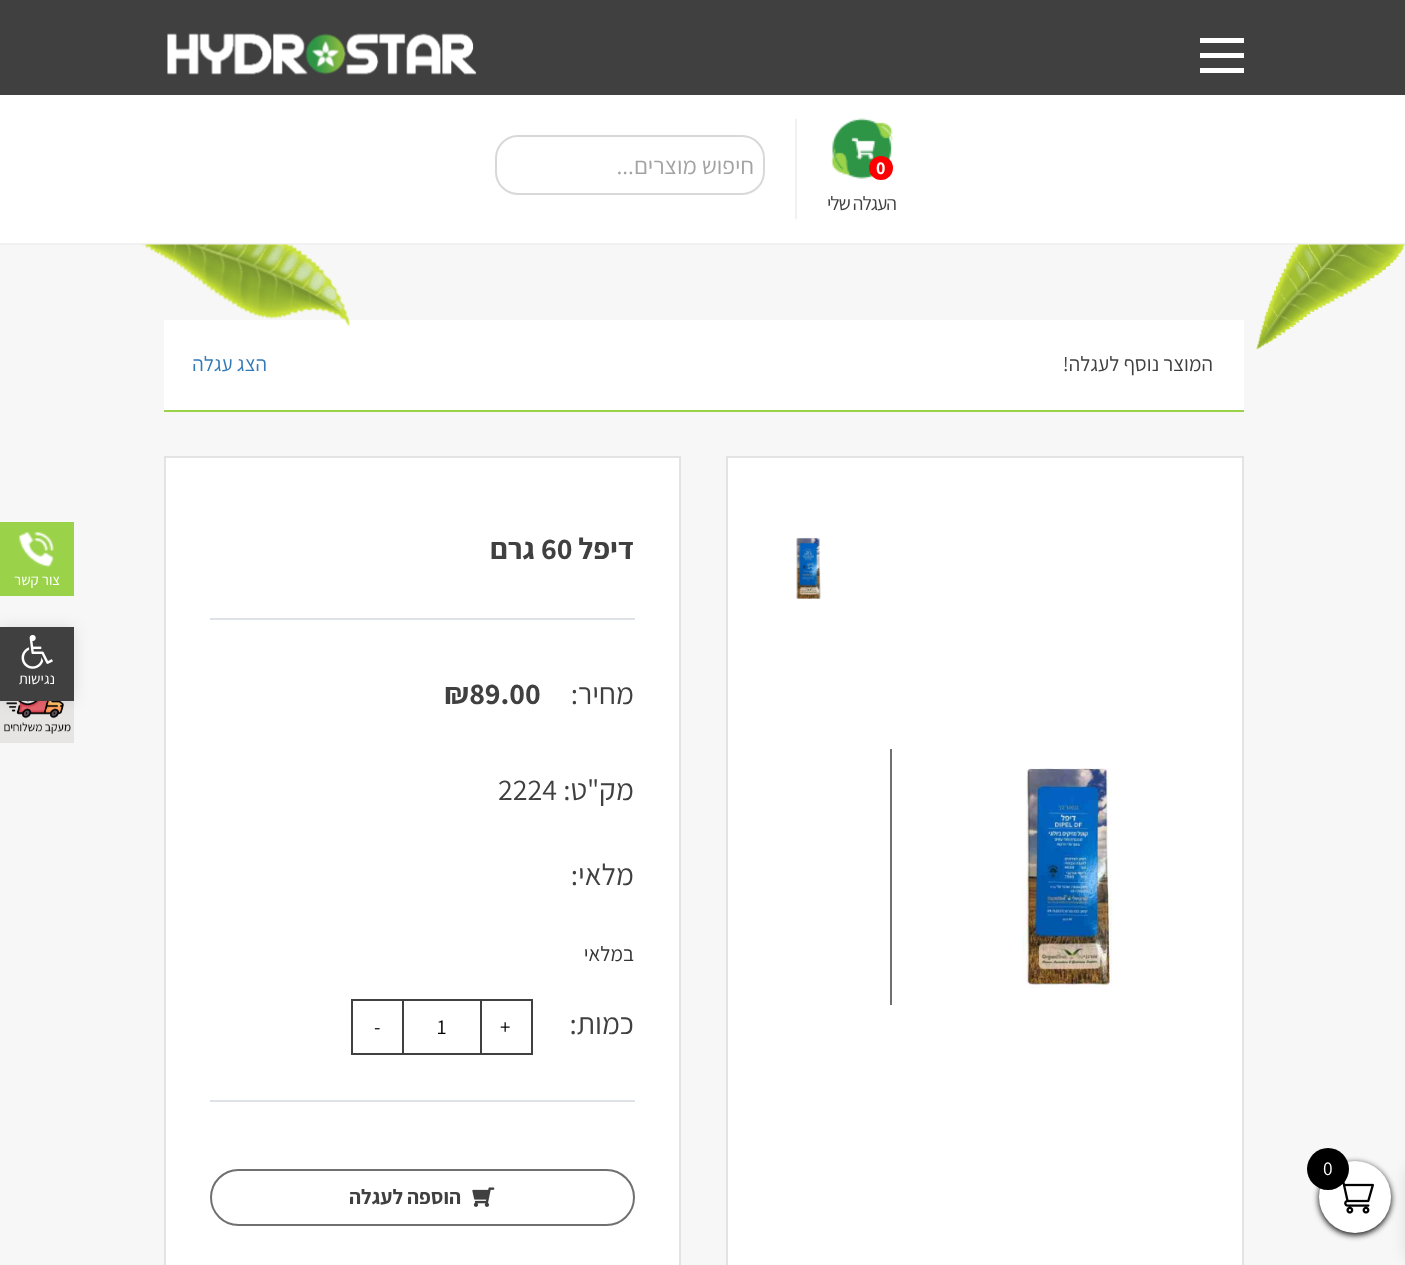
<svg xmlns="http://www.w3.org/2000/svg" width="1405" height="1265">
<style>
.a{font:bold 18px Assistant;letter-spacing:-1px;fill:#fff}
.b{font:19.5px Assistant;letter-spacing:-1px;direction:rtl;fill:#404041}
.c{font:24px Assistant;direction:rtl;fill:#a3a3a3}
.d{font:21px Assistant;direction:rtl;fill:#404041}
.e{font:21px Assistant;direction:rtl;fill:#337ab7}
.f{font:bold 30px Assistant;direction:rtl;fill:#404041}
.g{font:bold 30px Assistant;fill:#404041}
.h{font:30px Assistant;direction:rtl;fill:#404041}
.i{font:30px Assistant;fill:#404041}
.j{font:21px Assistant;direction:rtl;fill:#333}
.k{font:21px Assistant;fill:#000}
.l{font:bold 21px Assistant;direction:rtl;fill:#404041}
.m{font:15px Assistant;direction:rtl;fill:#fff}
.n{font:19.5px Assistant;fill:#fff}
</style>
<rect width="100%" height="100%" fill="#f7f7f7"/>
<path fill="#404041" d="M0 0h1405v95H0z"/>
<path fill="#fff" d="M1200 38h44v5H1200z"/>
<path fill="#fff" d="M1200 53h44v5H1200z"/>
<path fill="#fff" d="M1200 68h44v5H1200z"/>
<image href="1.png" x="167" y="33" width="310" height="42"/>
<path fill="#fff" d="M0 95h1405v148H0z"/>
<path fill="#f1f1f1" d="M0 243h1405v2H0z"/>
<path fill="#f1f1f1" d="M795 119h2v100H795z"/>
<image href="2.png" x="831" y="118" width="62" height="61"/>
<circle fill="#f00" cx="881" cy="168" r="12"/>
<rect fill="none" stroke="#d8d8d8" stroke-width="2" x="496" y="136" width="268" height="58" rx="22"/>
<image href="3.png" x="1256" y="244" width="149" height="106"/>
<path fill="#fff" d="M164 320h1080v90H164z"/>
<image href="4.png" x="141" y="244" width="209" height="83"/>
<path fill="#9ad34a" d="M164 410h1080v2H164z"/>
<path fill="#fff" stroke="#e3e3e3" stroke-width="2" d="M727 457h516v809H727z"/>
<image href="5.png" x="796" y="537" width="25" height="63"/>
<path fill="#707070" d="M890 749h2v256H890z"/>
<image href="6.png" x="1022" y="768" width="90" height="220"/>
<path fill="#fff" stroke="#e3e3e3" stroke-width="2" d="M165 457h515v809H165z"/>
<path fill="#dee2e6" d="M210 618h425v2H210z"/>
<path fill="#404041" d="M482 999h51v2H482z"/>
<path fill="#404041" d="M531 999h2v56H531z"/>
<path fill="#404041" d="M482 1053h51v2H482z"/>
<path fill="none" stroke="#404041" stroke-width="2" d="M403 1000h78v54H403z"/>
<path fill="#404041" d="M351 999h51v2H351z"/>
<path fill="#404041" d="M351 1053h51v2H351z"/>
<path fill="#404041" d="M351 999h2v56H351z"/>
<path fill="#dee2e6" d="M210 1100h425v2H210z"/>
<rect fill="none" stroke="#707070" stroke-width="2" x="211" y="1170" width="423" height="55" rx="27.5"/>
<image href="7.png" x="472" y="1187" width="23" height="20"/>
<path fill="#9ad34a" d="M0 522h74v74H0z"/>
<image href="8.png" x="19" y="532" width="35" height="35"/>
<path fill="#e7e4e4" d="M0 701h74v42H0z"/>
<image href="9.png" x="4" y="701" width="67" height="33"/>
<path fill="#0000001a" filter="blur(7.5px)" d="M0 627h74v74H0z"/>
<path fill="#404041" d="M0 627h74v74H0z"/>
<image href="10.png" x="21" y="635" width="32" height="34"/>
<path fill="#0000001a" filter="blur(7.5px)" d="M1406 1169h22v90H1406z"/>
<rect fill="#000" filter="blur(3px)" x="1319" y="1163" width="72" height="72" rx="36"/>
<circle fill="#fff" cx="1355" cy="1197" r="36"/>
<image href="11.png" x="1342" y="1181" width="32" height="33"/>
<circle fill="#000" cx="1328" cy="1169" r="21"/>
<text class="a" x="876" y="174">0</text>
<text class="b" x="896" y="210">העגלה שלי</text>
<text class="c" x="754" y="174">חיפוש מוצרים...</text>
<text class="d" x="1213" y="371">המוצר נוסף לעגלה!</text>
<text class="e" x="267" y="371">הצג עגלה</text>
<text class="f" x="634" y="559">דיפל</text>
<text class="g" x="541" y="559">60</text>
<text class="f" x="535" y="559">גרם</text>
<text class="h" x="634" y="704">מחיר:</text>
<text class="g" x="444" y="704">₪89.00</text>
<text class="h" x="634" y="800">מק"ט:</text>
<text class="i" x="498" y="800">2224</text>
<text class="h" x="634" y="885">מלאי:</text>
<text class="j" x="634" y="961">במלאי</text>
<text class="h" x="634" y="1034">כמות:</text>
<text class="k" x="500" y="1034">+</text>
<text class="k" x="437" y="1034">1</text>
<text class="k" x="374" y="1034">-</text>
<text class="l" x="461" y="1204">הוספה לעגלה</text>
<text class="m" x="60" y="585">צור קשר</text>
<text class="m" x="55" y="684">נגישות</text>
<text class="n" x="1323" y="1175">0</text>
</svg>
